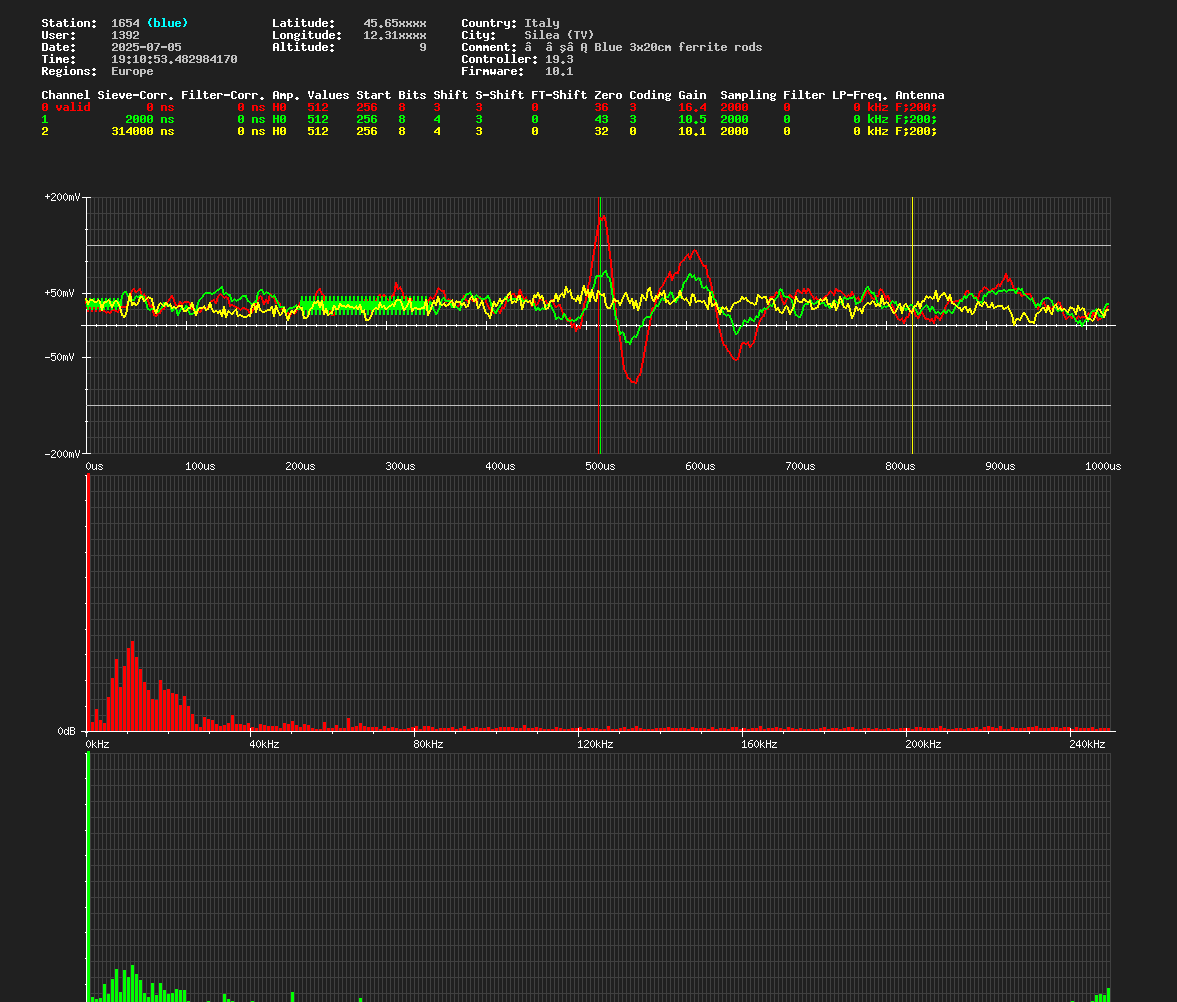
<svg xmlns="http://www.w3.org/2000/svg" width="1177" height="1002">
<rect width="100%" height="100%" fill="#202020"/>
<image href="1.png" x="42" y="18" width="1079" height="984"/>
</svg>
